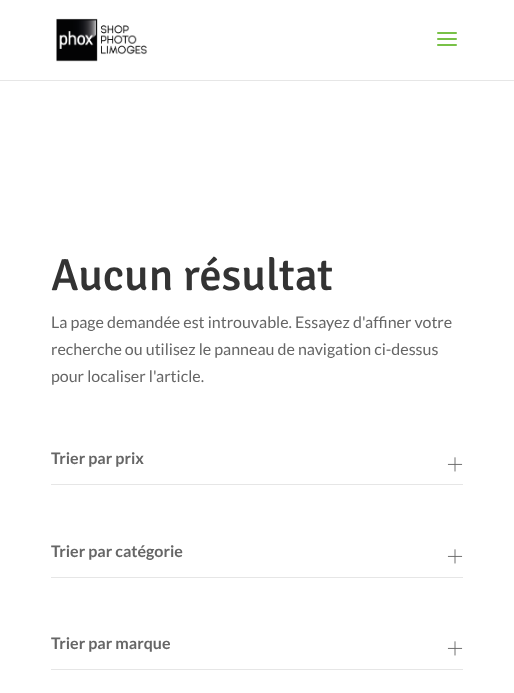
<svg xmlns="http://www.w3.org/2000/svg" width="514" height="693">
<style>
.a{font:300 45px Signika;fill:#333}
.b{font:16px Lato;fill:#666}
.c{font:bold 16px Lato;fill:#666}
</style>
<rect width="100%" height="100%" fill="#fff"/>
<path fill="#e6e6e6" d="M0 80h514v1H0z"/>
<image href="1.png" x="56" y="18" width="92" height="44"/>
<image href="2.png" x="437" y="32" width="20" height="14"/>
<path fill="#e6e6e6" d="M51 484h412v1H51z"/>
<image href="3.png" x="447" y="457" width="16" height="15"/>
<path fill="#e6e6e6" d="M51 577h412v1H51z"/>
<image href="3.png" x="447" y="549" width="16" height="15"/>
<path fill="#e6e6e6" d="M51 669h412v1H51z"/>
<image href="3.png" x="447" y="641" width="16" height="15"/>
<text class="a" x="51" y="290">Aucun résultat</text>
<text class="b" x="51" y="328">La page demandée est introuvable. Essayez d'affiner votre</text>
<text class="b" x="51" y="355">recherche ou utilisez le panneau de navigation ci-dessus</text>
<text class="b" x="51" y="382">pour localiser l'article.</text>
<text class="c" x="51" y="464">Trier par prix</text>
<text class="c" x="51" y="557">Trier par catégorie</text>
<text class="c" x="51" y="649">Trier par marque</text>
</svg>
